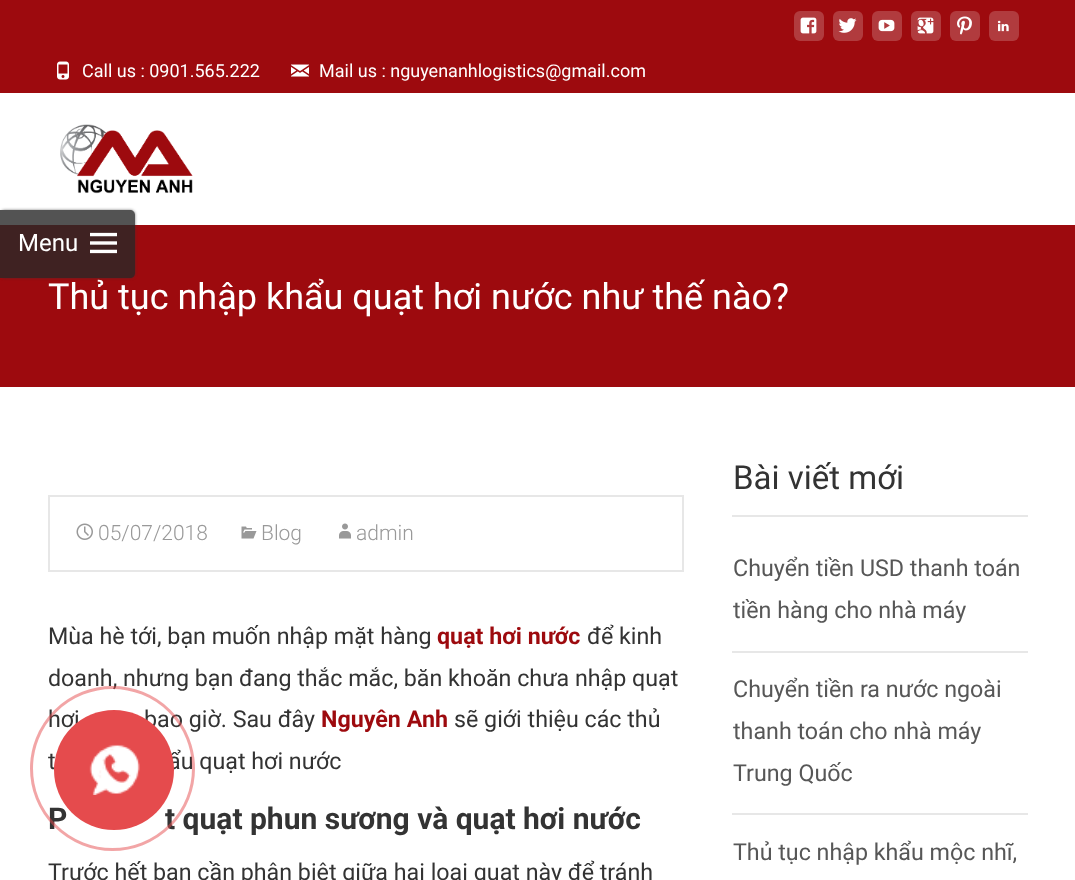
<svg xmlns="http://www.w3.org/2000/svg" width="1075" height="880">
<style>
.a{font:18px Roboto;fill:#fff}
.b{font:24px Roboto;fill:#fff}
.c{font:36px Roboto;fill:#fff}
.d{font:300 21px Roboto;fill:#999}
.e{font:23.25px Roboto;fill:#333}
.f{font:bold 23.25px Roboto;fill:#9d0a0e}
.g{font:bold 30px Roboto;fill:#333}
.h{font:33px Roboto;fill:#333}
.i{font:23.25px Roboto;fill:#575757}
</style>
<defs>
<clipPath id="clip1"><path d="M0 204h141v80h-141zm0 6h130c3 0 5 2 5 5v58c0 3-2 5-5 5h-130z" clip-rule="evenodd"/></clipPath>
</defs>
<rect width="100%" height="100%" fill="#fff"/>
<path fill="#9d0a0e" d="M0 0h1075v93H0z"/>
<rect fill="#b13b3e" x="794" y="11" width="30" height="30" rx="6"/>
<image href="1.png" x="800" y="17" width="17" height="17"/>
<rect fill="#b13b3e" x="833" y="11" width="30" height="30" rx="6"/>
<image href="2.png" x="838" y="18" width="19" height="15"/>
<rect fill="#b13b3e" x="872" y="11" width="30" height="30" rx="6"/>
<image href="3.png" x="878" y="19" width="17" height="13"/>
<rect fill="#b13b3e" x="911" y="11" width="30" height="30" rx="6"/>
<image href="4.png" x="917" y="17" width="17" height="17"/>
<rect fill="#b13b3e" x="950" y="11" width="30" height="30" rx="6"/>
<image href="5.png" x="957" y="16" width="15" height="19"/>
<rect fill="#b13b3e" x="989" y="11" width="30" height="30" rx="6"/>
<image href="6.png" x="997" y="20" width="12" height="12"/>
<image href="7.png" x="57" y="61" width="12" height="19"/>
<image href="8.png" x="291" y="64" width="18" height="13"/>
<image href="9.png" x="60" y="124" width="133" height="70"/>
<path fill="#9d0a0e" d="M0 225h1075v162H0z"/>
<g clip-path="url(#clip1)">
<rect fill="#323232a3" filter="blur(1.5px)" y="210" width="135" height="68" rx="5"/>
</g>
<path fill="#282828cc" d="M0 210h130c3 0 5 2 5 5v58c0 3-2 5-5 5h-130z"/>
<image href="10.png" x="90" y="232" width="27" height="22"/>
<path fill="none" stroke="#e7e7e7" stroke-width="2" d="M49 496h634v75H49z"/>
<image href="11.png" x="76" y="523" width="17" height="17"/>
<image href="12.png" x="241" y="526" width="16" height="13"/>
<image href="13.png" x="339" y="523" width="12" height="16"/>
<path fill="#e7e7e7" d="M732 515h296v2H732z"/>
<path fill="#e7e7e7" d="M732 651h296v2H732z"/>
<path fill="#e7e7e7" d="M732 813h296v2H732z"/>
<text class="a" x="82" y="77">Call us : 0901.565.222</text>
<text class="a" x="319" y="77">Mail us : nguyenanhlogistics@gmail.com</text>
<text class="b" x="18" y="251">Menu</text>
<text class="c" x="48" y="309">Thủ tục nhập khẩu quạt hơi nước như thế nào?</text>
<text class="d" x="98" y="540">05/07/2018</text>
<text class="d" x="261" y="540">Blog</text>
<text class="d" x="356" y="540">admin</text>
<text class="e" x="48" y="644">Mùa hè tới, bạn muốn nhập mặt hàng</text>
<text class="f" x="437" y="644">quạt hơi nước</text>
<text class="e" x="587" y="644">để kinh</text>
<text class="e" x="48" y="686">doanh, nhưng bạn đang thắc mắc, băn khoăn chưa nhập quạt</text>
<text class="e" x="48" y="727">hơi</text>
<text class="e" x="144" y="727">bao giờ. Sau đây</text>
<text class="f" x="321" y="727">Nguyên Anh</text>
<text class="e" x="454" y="727">sẽ giới thiệu các thủ</text>
<text class="e" x="48" y="769">t</text>
<text class="e" x="168" y="769">ẩu quạt hơi nước</text>
<text class="g" x="48" y="829">P</text>
<text class="g" x="165" y="829">t quạt phun sương và quạt hơi nước</text>
<text class="e" x="48" y="880">Trước hết bạn cần phân biệt giữa hai loại quạt này để tránh</text>
<text class="h" x="733" y="489">Bài viết mới</text>
<text class="i" x="733" y="576">Chuyển tiền USD thanh toán</text>
<text class="i" x="733" y="618">tiền hàng cho nhà máy</text>
<text class="i" x="733" y="697">Chuyển tiền ra nước ngoài</text>
<text class="i" x="733" y="739">thanh toán cho nhà máy</text>
<text class="i" x="733" y="781">Trung Quốc</text>
<text class="i" x="733" y="860">Thủ tục nhập khẩu mộc nhĩ,</text>
<circle fill="none" stroke="#e54b4d80" stroke-width="3" cx="112.5" cy="768.5" r="81"/>
<circle fill="#e54b4d" cx="114" cy="770" r="60"/>
<image href="14.png" x="89" y="744" width="51" height="51"/>
</svg>
